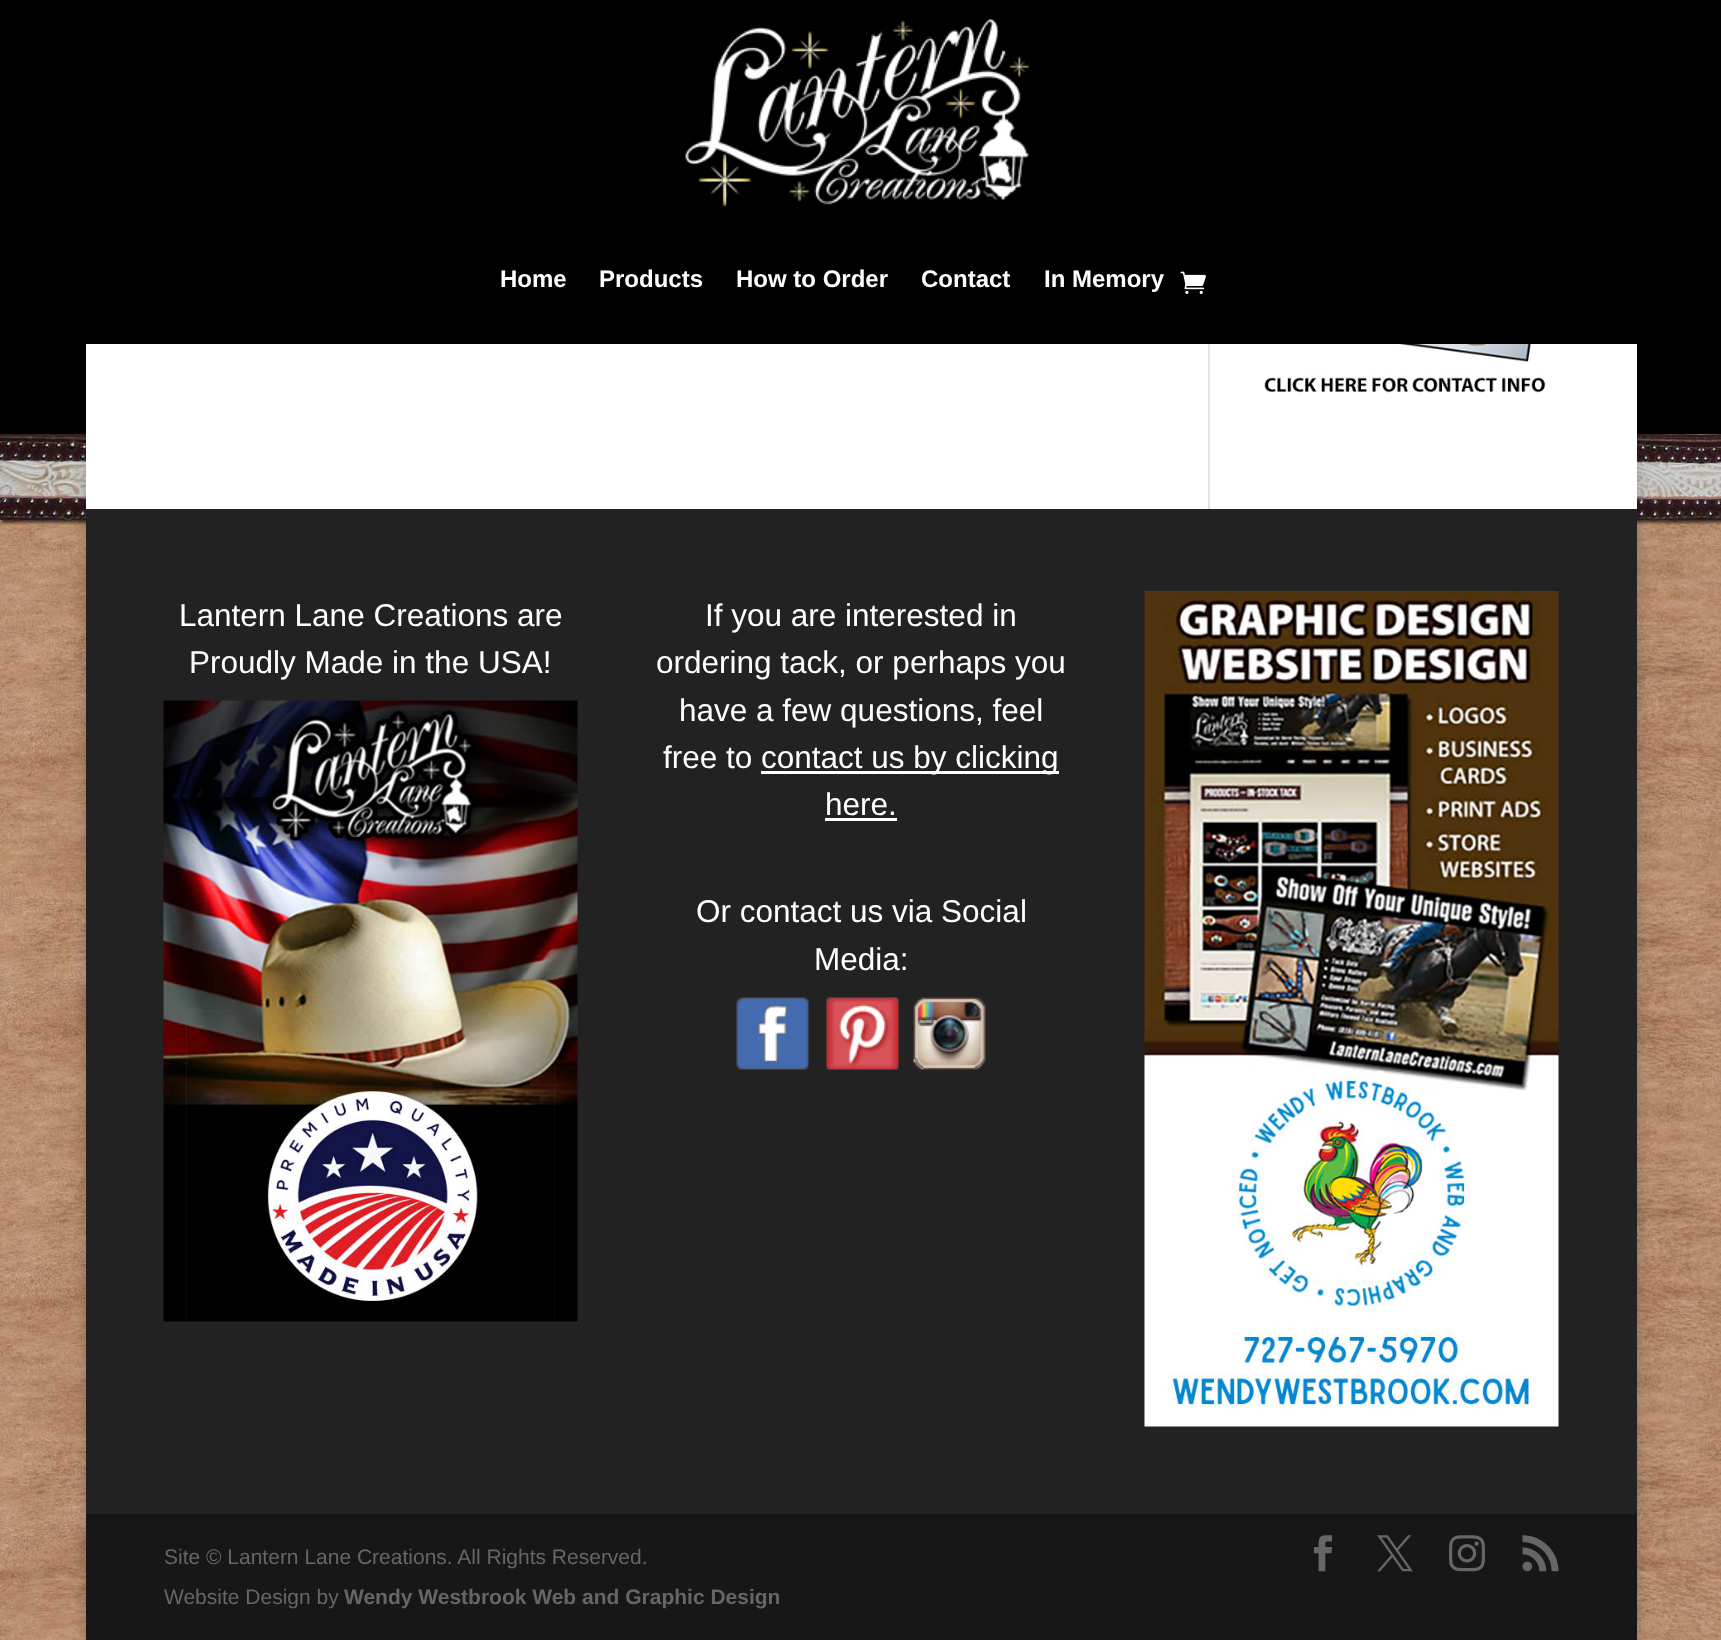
<svg xmlns="http://www.w3.org/2000/svg" width="1721" height="1640">
<style>
.a{font:bold 24px Liberation Sans;fill:#fff}
.b{font:31.5px Liberation Sans;fill:#fff}
.c{font:21px Liberation Sans;fill:#666}
.d{font:bold 21px Liberation Sans;fill:#666}
</style>
<rect width="100%" height="100%" fill="#fff"/>
<image href="1.png" x="0" y="0" width="1721" height="1640"/>
<path fill="#00000033" filter="blur(7.5px)" d="M86 -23h1551v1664H86z"/>
<image href="2.png" x="685" y="19" width="345" height="188"/>
<image href="3.png" x="1180" y="271" width="26" height="23"/>
<path fill="#fff" d="M86 344h1551v165H86z"/>
<path fill="#e2e2e2" d="M1208 344h2v165H1208z"/>
<image href="4.png" x="1264" y="344" width="285" height="49"/>
<path fill="#222" d="M86 509h1551v1005H86z"/>
<image href="5.png" x="163" y="700" width="415" height="622"/>
<path fill="#fff" d="M761 771h298v3H761z"/>
<path fill="#fff" d="M825 818h72v3H825z"/>
<image href="6.png" x="736" y="997" width="73" height="73"/>
<image href="7.png" x="826" y="997" width="73" height="73"/>
<image href="8.png" x="913" y="997" width="73" height="73"/>
<image href="9.png" x="1144" y="591" width="415" height="836"/>
<path fill="#171717" d="M86 1514h1551v126H86z"/>
<image href="10.png" x="1314" y="1535" width="19" height="37"/>
<image href="11.png" x="1377" y="1535" width="36" height="37"/>
<image href="12.png" x="1449" y="1535" width="36" height="37"/>
<image href="13.png" x="1522" y="1535" width="37" height="37"/>
<text class="a" x="500" y="287">Home</text>
<text class="a" x="599" y="287">Products</text>
<text class="a" x="736" y="287">How to Order</text>
<text class="a" x="921" y="287">Contact</text>
<text class="a" x="1044" y="287">In Memory</text>
<text class="b" x="179" y="626">Lantern Lane Creations are</text>
<text class="b" x="189" y="673">Proudly Made in the USA!</text>
<text class="b" x="705" y="626">If you are interested in</text>
<text class="b" x="656" y="673">ordering tack, or perhaps you</text>
<text class="b" x="679" y="721">have a few questions, feel</text>
<text class="b" x="663" y="768">free to</text>
<text class="b" x="761" y="768">contact us by clicking</text>
<text class="b" x="825" y="815">here.</text>
<text class="b" x="696" y="922">Or contact us via Social</text>
<text class="b" x="814" y="970">Media:</text>
<text class="c" x="164" y="1564">Site © Lantern Lane Creations. All Rights Reserved.</text>
<text class="c" x="164" y="1604">Website Design by</text>
<text class="d" x="344" y="1604">Wendy Westbrook Web and Graphic Design</text>
</svg>
